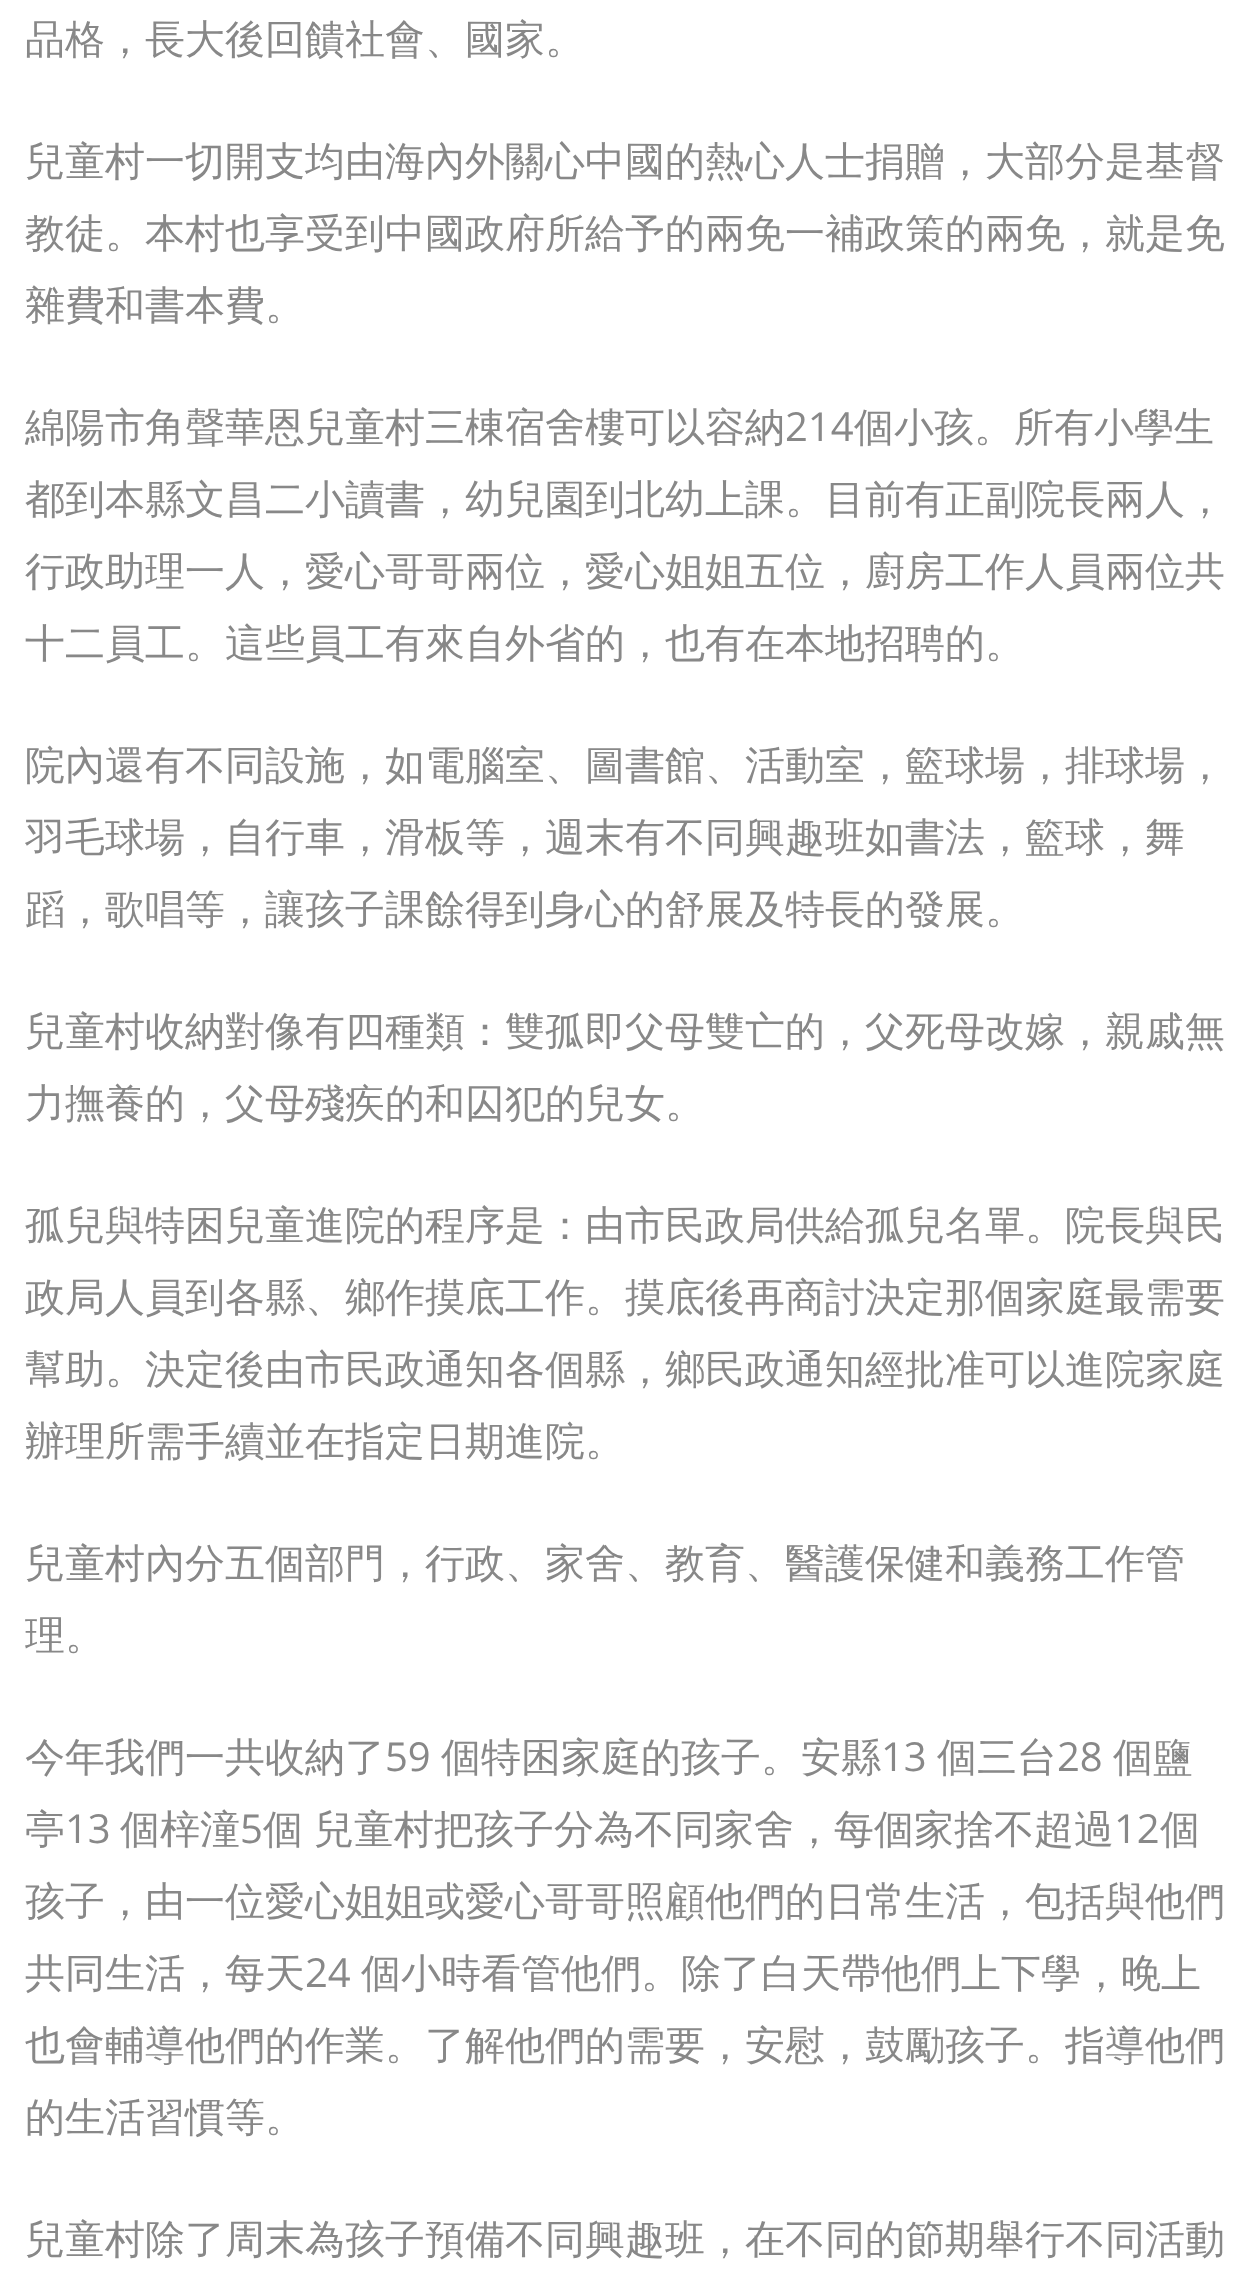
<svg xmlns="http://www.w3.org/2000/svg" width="1256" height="2281">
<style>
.a{font:500 40px WenQuanYi Zen Hei;fill:#888}
.b{font:40px Open Sans;fill:#888}
</style>
<rect width="100%" height="100%" fill="#fff"/>
<text class="a" x="25" y="53">品格，長大後回饋社會、國家。</text>
<text class="a" x="25" y="175">兒童村一切開支均由海內外關心中國的熱心人士捐贈，大部分是基督</text>
<text class="a" x="25" y="247">教徒。本村也享受到中國政府所給予的兩免一補政策的兩免，就是免</text>
<text class="a" x="25" y="319">雜費和書本費。</text>
<text class="a" x="25" y="441">綿陽市角聲華恩兒童村三棟宿舍樓可以容納</text>
<text class="b" x="785" y="441">214</text>
<text class="a" x="854" y="441">個小孩。所有小學生</text>
<text class="a" x="25" y="513">都到本縣文昌二小讀書，幼兒園到北幼上課。目前有正副院長兩人，</text>
<text class="a" x="25" y="585">行政助理一人，愛心哥哥兩位，愛心姐姐五位，廚房工作人員兩位共</text>
<text class="a" x="25" y="657">十二員工。這些員工有來自外省的，也有在本地招聘的。</text>
<text class="a" x="25" y="779">院內還有不同設施，如電腦室、圖書館、活動室，籃球場，排球場，</text>
<text class="a" x="25" y="851">羽毛球場，自行車，滑板等，週末有不同興趣班如書法，籃球，舞</text>
<text class="a" x="25" y="923">蹈，歌唱等，讓孩子課餘得到身心的舒展及特長的發展。</text>
<text class="a" x="25" y="1045">兒童村收納對像有四種類：雙孤即父母雙亡的，父死母改嫁，親戚無</text>
<text class="a" x="25" y="1117">力撫養的，父母殘疾的和囚犯的兒女。</text>
<text class="a" x="25" y="1239">孤兒與特困兒童進院的程序是：由市民政局供給孤兒名單。院長與民</text>
<text class="a" x="25" y="1311">政局人員到各縣、鄉作摸底工作。摸底後再商討決定那個家庭最需要</text>
<text class="a" x="25" y="1383">幫助。決定後由市民政通知各個縣，鄉民政通知經批准可以進院家庭</text>
<text class="a" x="25" y="1455">辦理所需手續並在指定日期進院。</text>
<text class="a" x="25" y="1577">兒童村內分五個部門，行政、家舍、教育、醫護保健和義務工作管</text>
<text class="a" x="25" y="1649">理。</text>
<text class="a" x="25" y="1771">今年我們一共收納了</text>
<text class="b" x="385" y="1771">59</text>
<text class="a" x="441" y="1771">個特困家庭的孩子。安縣</text>
<text class="b" x="881" y="1771">13</text>
<text class="a" x="937" y="1771">個三台</text>
<text class="b" x="1057" y="1771">28</text>
<text class="a" x="1113" y="1771">個鹽</text>
<text class="a" x="25" y="1843">亭</text>
<text class="b" x="65" y="1843">13</text>
<text class="a" x="120" y="1843">個梓潼</text>
<text class="b" x="240" y="1843">5</text>
<text class="a" x="263" y="1843" word-spacing="-1">個 兒童村把孩子分為不同家舍，每個家捨不超過</text>
<text class="b" x="1114" y="1843">12</text>
<text class="a" x="1160" y="1843">個</text>
<text class="a" x="25" y="1915">孩子，由一位愛心姐姐或愛心哥哥照顧他們的日常生活，包括與他們</text>
<text class="a" x="25" y="1987">共同生活，每天</text>
<text class="b" x="305" y="1987">24</text>
<text class="a" x="361" y="1987">個小時看管他們。除了白天帶他們上下學，晚上</text>
<text class="a" x="25" y="2059">也會輔導他們的作業。了解他們的需要，安慰，鼓勵孩子。指導他們</text>
<text class="a" x="25" y="2131">的生活習慣等。</text>
<text class="a" x="25" y="2253">兒童村除了周末為孩子預備不同興趣班，在不同的節期舉行不同活動</text>
</svg>
